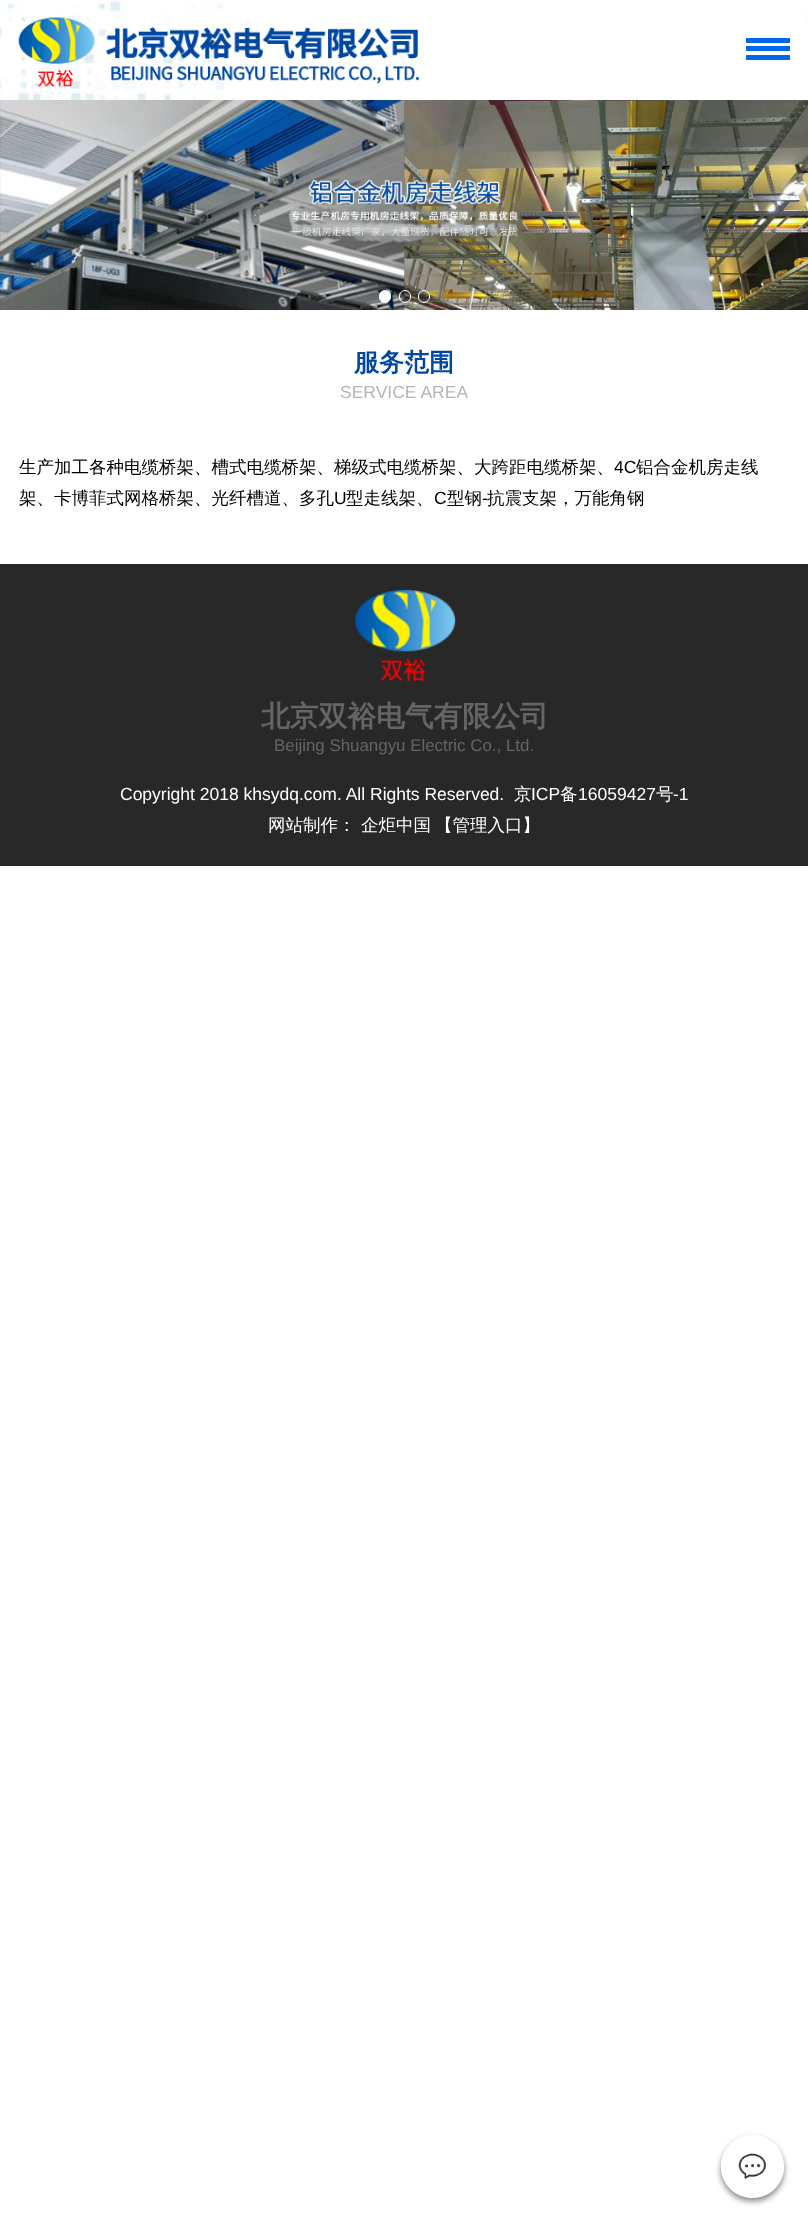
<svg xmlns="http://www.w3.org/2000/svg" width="808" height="2222">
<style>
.a{font:bold 25px WenQuanYi Zen Hei;fill:#0047a1}
.b{font:17.5px Liberation Sans;fill:#b5b5b5}
.c{font:500 17.5px WenQuanYi Zen Hei;fill:#000}
.d{font:17.5px Liberation Sans;fill:#000}
.e{font:bold 28.75px WenQuanYi Zen Hei;fill:#656565}
.f{font:16.9px Liberation Sans;fill:#656565}
.g{font:17.5px Liberation Sans;fill:#fff}
.h{font:500 17.5px WenQuanYi Zen Hei;fill:#fff}
</style>
<defs>
<clipPath id="clip1"><path d="M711 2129h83v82h-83zm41.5 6c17.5 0 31.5 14 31.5 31.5c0 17.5-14 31.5-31.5 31.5c-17.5 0-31.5-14-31.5-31.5c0-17.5 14-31.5 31.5-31.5z" clip-rule="evenodd"/></clipPath>
</defs>
<rect width="100%" height="100%" fill="#fff"/>
<image href="1.png" x="0" y="0" width="808" height="100"/>
<image href="2.png" x="18" y="17" width="401" height="70"/>
<path fill="#0067e9" d="M746 38h44v5H746z"/>
<path fill="#0067e9" d="M746 46h44v5H746z"/>
<path fill="#0067e9" d="M746 55h44v5H746z"/>
<image href="3.png" x="0" y="100" width="808" height="210"/>
<rect fill="#fff" stroke="#fff" x="379.5" y="290.5" width="11" height="12" rx="5.5"/>
<rect fill="none" stroke="#fff" x="399.5" y="290.5" width="11" height="12" rx="5.5"/>
<rect fill="none" stroke="#fff" x="418.5" y="290.5" width="11" height="12" rx="5.5"/>
<path fill="#282828" d="M0 564h808v302H0z"/>
<image href="4.png" x="354" y="589" width="102" height="93"/>
<g clip-path="url(#clip1)">
<rect fill="#00000080" filter="blur(3px)" x="721" y="2139" width="63" height="62" rx="31"/>
</g>
<circle fill="#ffffffcc" cx="752.5" cy="2166.5" r="31.5"/>
<image href="5.png" x="738" y="2153" width="28" height="26"/>
<text class="a" x="354" y="371">服务范围</text>
<text class="b" x="340" y="398">SERVICE AREA</text>
<text class="c" x="19" y="473">生产加工各种电缆桥架、槽式电缆桥架、梯级式电缆桥架、大跨距电缆桥架、</text>
<text class="d" x="614" y="473">4C</text>
<text class="c" x="636" y="473">铝合金机房走线</text>
<text class="c" x="19" y="504">架、卡博菲式网格桥架、光纤槽道、多孔</text>
<text class="d" x="334" y="504">U</text>
<text class="c" x="346" y="504">型走线架、</text>
<text class="d" x="434" y="504">C</text>
<text class="c" x="447" y="504">型钢</text>
<text class="d" x="482" y="504">-</text>
<text class="c" x="487" y="504">抗震支架，万能角钢</text>
<text class="e" x="261" y="726">北京双裕电气有限公司</text>
<text class="f" x="274" y="751">Beijing Shuangyu Electric Co., Ltd.</text>
<text class="g" x="120" y="800">Copyright 2018 khsydq.com. All Rights Reserved.</text>
<text class="h" x="514" y="800">京</text>
<text class="g" x="531" y="800">ICP</text>
<text class="h" x="560" y="800">备</text>
<text class="g" x="578" y="800">16059427</text>
<text class="h" x="656" y="800">号</text>
<text class="g" x="673" y="800">-1</text>
<text class="h" x="268" y="831">网站制作：</text>
<text class="h" x="361" y="831">企炬中国</text>
<text class="h" x="435" y="831">【管理入口】</text>
</svg>
